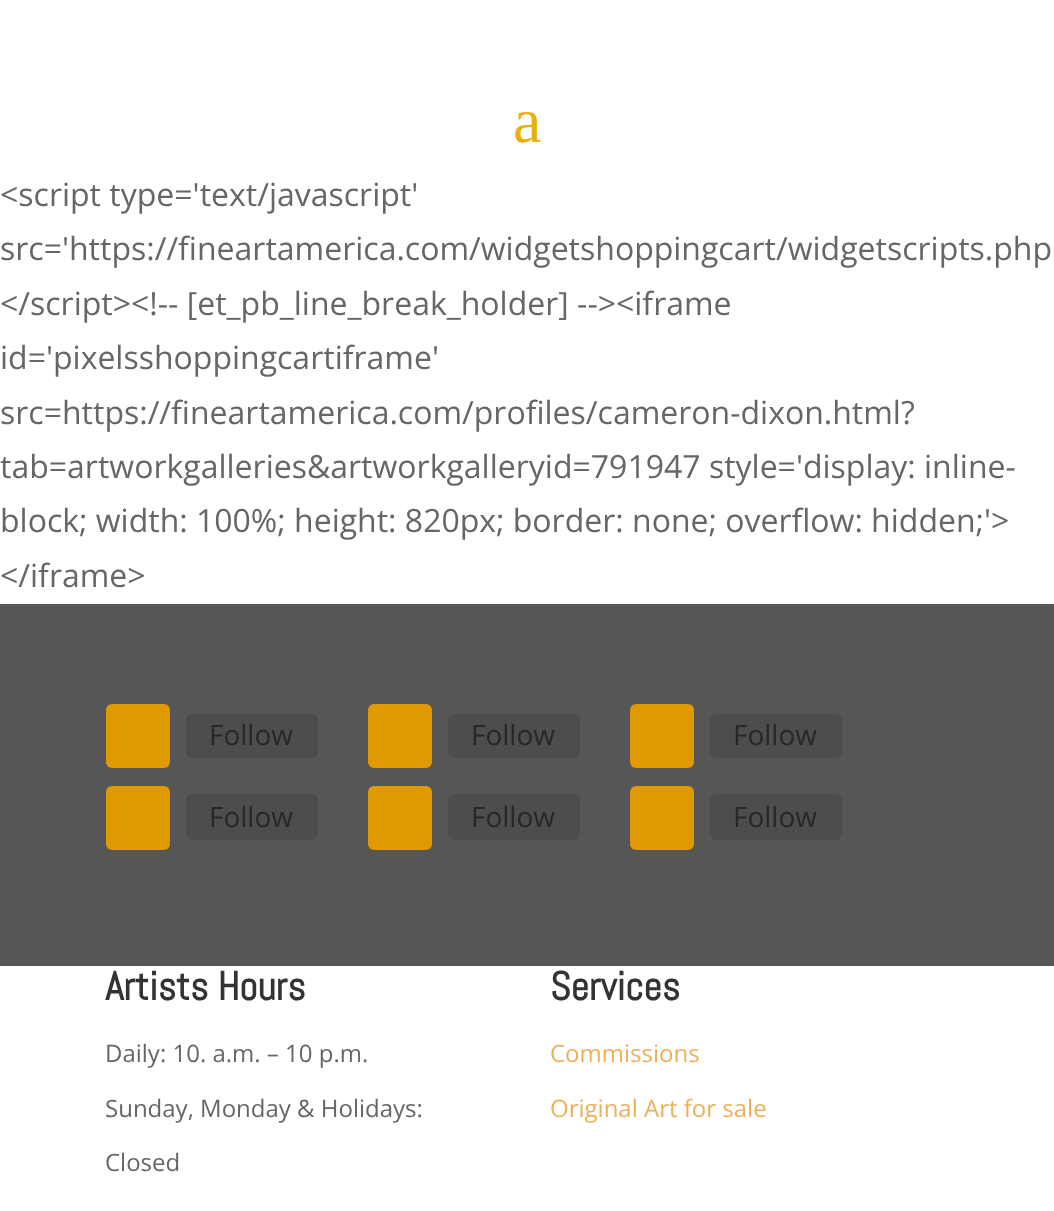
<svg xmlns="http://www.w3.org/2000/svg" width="1054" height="1211">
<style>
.a{font:64px Liberation Serif;fill:#eab010}
.b{font:32px Open Sans;fill:#666}
.c{font:28px Open Sans;fill:#272727}
.d{font:bold 40px Abel;fill:#333}
.e{font:24px Open Sans;fill:#666}
.f{font:24px Open Sans;fill:#edb059}
</style>
<rect width="100%" height="100%" fill="#565656"/>
<path fill="#fff" d="M0 0h1054v604H0z"/>
<rect fill="#e09900" x="106" y="704" width="64" height="64" rx="6"/>
<rect fill="#4d4d4d" x="186" y="714" width="132" height="44" rx="6"/>
<rect fill="#e09900" x="368" y="704" width="64" height="64" rx="6"/>
<rect fill="#4d4d4d" x="448" y="714" width="132" height="44" rx="6"/>
<rect fill="#e09900" x="630" y="704" width="64" height="64" rx="6"/>
<rect fill="#4d4d4d" x="710" y="714" width="132" height="44" rx="6"/>
<rect fill="#e09900" x="106" y="786" width="64" height="64" rx="6"/>
<rect fill="#4d4d4d" x="186" y="794" width="132" height="46" rx="6"/>
<rect fill="#e09900" x="368" y="786" width="64" height="64" rx="6"/>
<rect fill="#4d4d4d" x="448" y="794" width="132" height="46" rx="6"/>
<rect fill="#e09900" x="630" y="786" width="64" height="64" rx="6"/>
<rect fill="#4d4d4d" x="710" y="794" width="132" height="46" rx="6"/>
<path fill="#fff" d="M0 966h1054v245H0z"/>
<text class="a" x="513" y="142">a</text>
<text class="b" x="0" y="206">&lt;script type='text/javascript'</text>
<text class="b" x="0" y="260">src='https://fineartamerica.com/widgetshoppingcart/widgetscripts.php</text>
<text class="b" x="0" y="315">&lt;/script&gt;&lt;!-- [et_pb_line_break_holder] --&gt;&lt;iframe</text>
<text class="b" x="0" y="369">id='pixelsshoppingcartiframe'</text>
<text class="b" x="0" y="424">src=https://fineartamerica.com/profiles/cameron-dixon.html?</text>
<text class="b" x="0" y="478">tab=artworkgalleries&amp;artworkgalleryid=791947 style='display: inline-</text>
<text class="b" x="0" y="532">block; width: 100%; height: 820px; border: none; overflow: hidden;'&gt;</text>
<text class="b" x="0" y="587">&lt;/iframe&gt;</text>
<text class="c" x="209" y="745">Follow</text>
<text class="c" x="471" y="745">Follow</text>
<text class="c" x="733" y="745">Follow</text>
<text class="c" x="209" y="827">Follow</text>
<text class="c" x="471" y="827">Follow</text>
<text class="c" x="733" y="827">Follow</text>
<text class="d" x="105" y="1000">Artists Hours</text>
<text class="e" x="105" y="1062">Daily: 10. a.m. – 10 p.m.</text>
<text class="e" x="105" y="1117">Sunday, Monday &amp; Holidays:</text>
<text class="e" x="105" y="1171">Closed</text>
<text class="d" x="550" y="1000">Services</text>
<text class="f" x="550" y="1062">Commissions</text>
<text class="f" x="550" y="1117">Original Art for sale</text>
</svg>
